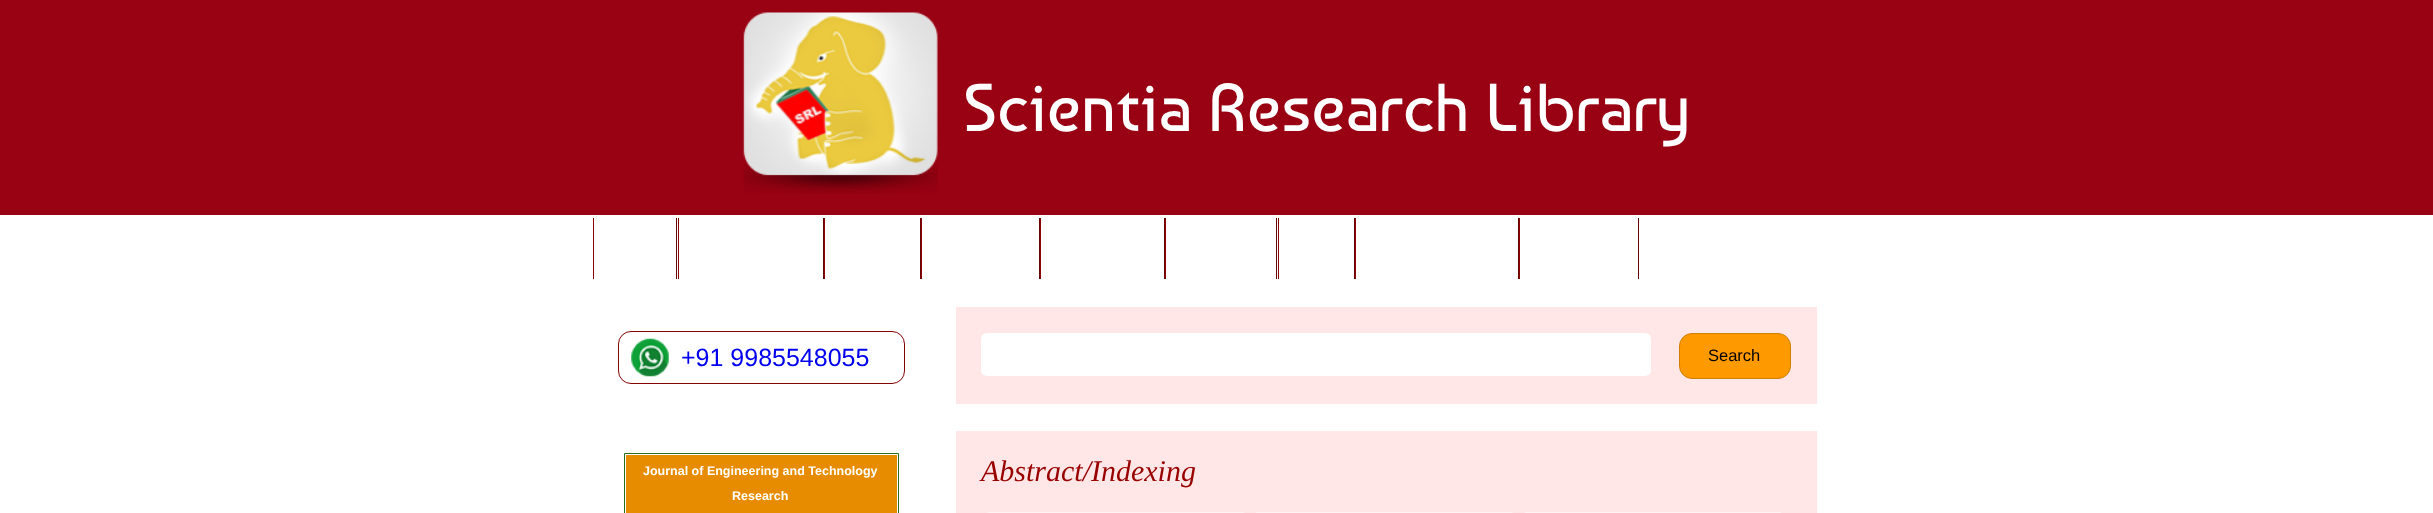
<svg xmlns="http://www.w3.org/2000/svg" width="2433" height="513">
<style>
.a{font:67.5px Baumans;fill:#fff}
.b{font:25px Liberation Sans;fill:#00e}
.c{font:bold 12.5px Liberation Sans;fill:#fff}
.d{font:16.5px Liberation Sans;fill:#000}
.e{font:italic 30px Liberation Serif;fill:#900}
</style>
<rect width="100%" height="100%" fill="#fff"/>
<path fill="#990212" d="M0 0h2433v215H0z"/>
<image href="1.png" x="743" y="12" width="195" height="182"/>
<path fill="#670404" d="M676 218h1v61H676z"/>
<path fill="#8c0303" d="M593 218h1v61H593z"/>
<path fill="#670404" d="M823 218h1v61H823z"/>
<path fill="#8c0303" d="M678 218h1v61H678z"/>
<path fill="#670404" d="M920 218h1v61H920z"/>
<path fill="#8c0303" d="M824 218h1v61H824z"/>
<path fill="#670404" d="M1039 218h1v61H1039z"/>
<path fill="#8c0303" d="M921 218h1v61H921z"/>
<path fill="#670404" d="M1164 218h1v61H1164z"/>
<path fill="#8c0303" d="M1040 218h1v61H1040z"/>
<path fill="#670404" d="M1276 218h1v61H1276z"/>
<path fill="#8c0303" d="M1165 218h1v61H1165z"/>
<path fill="#670404" d="M1354 218h1v61H1354z"/>
<path fill="#8c0303" d="M1278 218h1v61H1278z"/>
<path fill="#670404" d="M1518 218h1v61H1518z"/>
<path fill="#8c0303" d="M1355 218h1v61H1355z"/>
<path fill="#670404" d="M1638 218h1v61H1638z"/>
<path fill="#8c0303" d="M1519 218h1v61H1519z"/>
<rect fill="none" stroke="#840303" x="618.5" y="331.5" width="286" height="52" rx="12.5"/>
<image href="2.png" x="631" y="338" width="38" height="39"/>
<path fill="none" stroke="#246d17" d="M624.5 453.5h274v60H624.5z"/>
<path fill="#e78c01" d="M626 455h271v58H626z"/>
<path fill="#ffe7e8" d="M956 307h861v97H956z"/>
<rect fill="#fff" x="981" y="333" width="670" height="43" rx="6"/>
<rect fill="#f90" stroke="#cf7e05" x="1679.5" y="333.5" width="111" height="45" rx="12.5"/>
<path fill="#ffe7e8" d="M956 431h861v82H956z"/>
<image href="3.png" x="987" y="512" width="257" height="1"/>
<image href="4.png" x="1256" y="512" width="257" height="1"/>
<path fill="#fff3f4" d="M1525 512h256v1H1525z"/>
<text class="a" x="963" y="131">Scientia Research Library</text>
<text class="b" x="681" y="366">+91 9985548055</text>
<text class="c" x="643" y="475">Journal of Engineering and Technology</text>
<text class="c" x="732" y="500">Research</text>
<text class="d" x="1708" y="361">Search</text>
<text class="e" x="981" y="481">Abstract/Indexing</text>
</svg>
